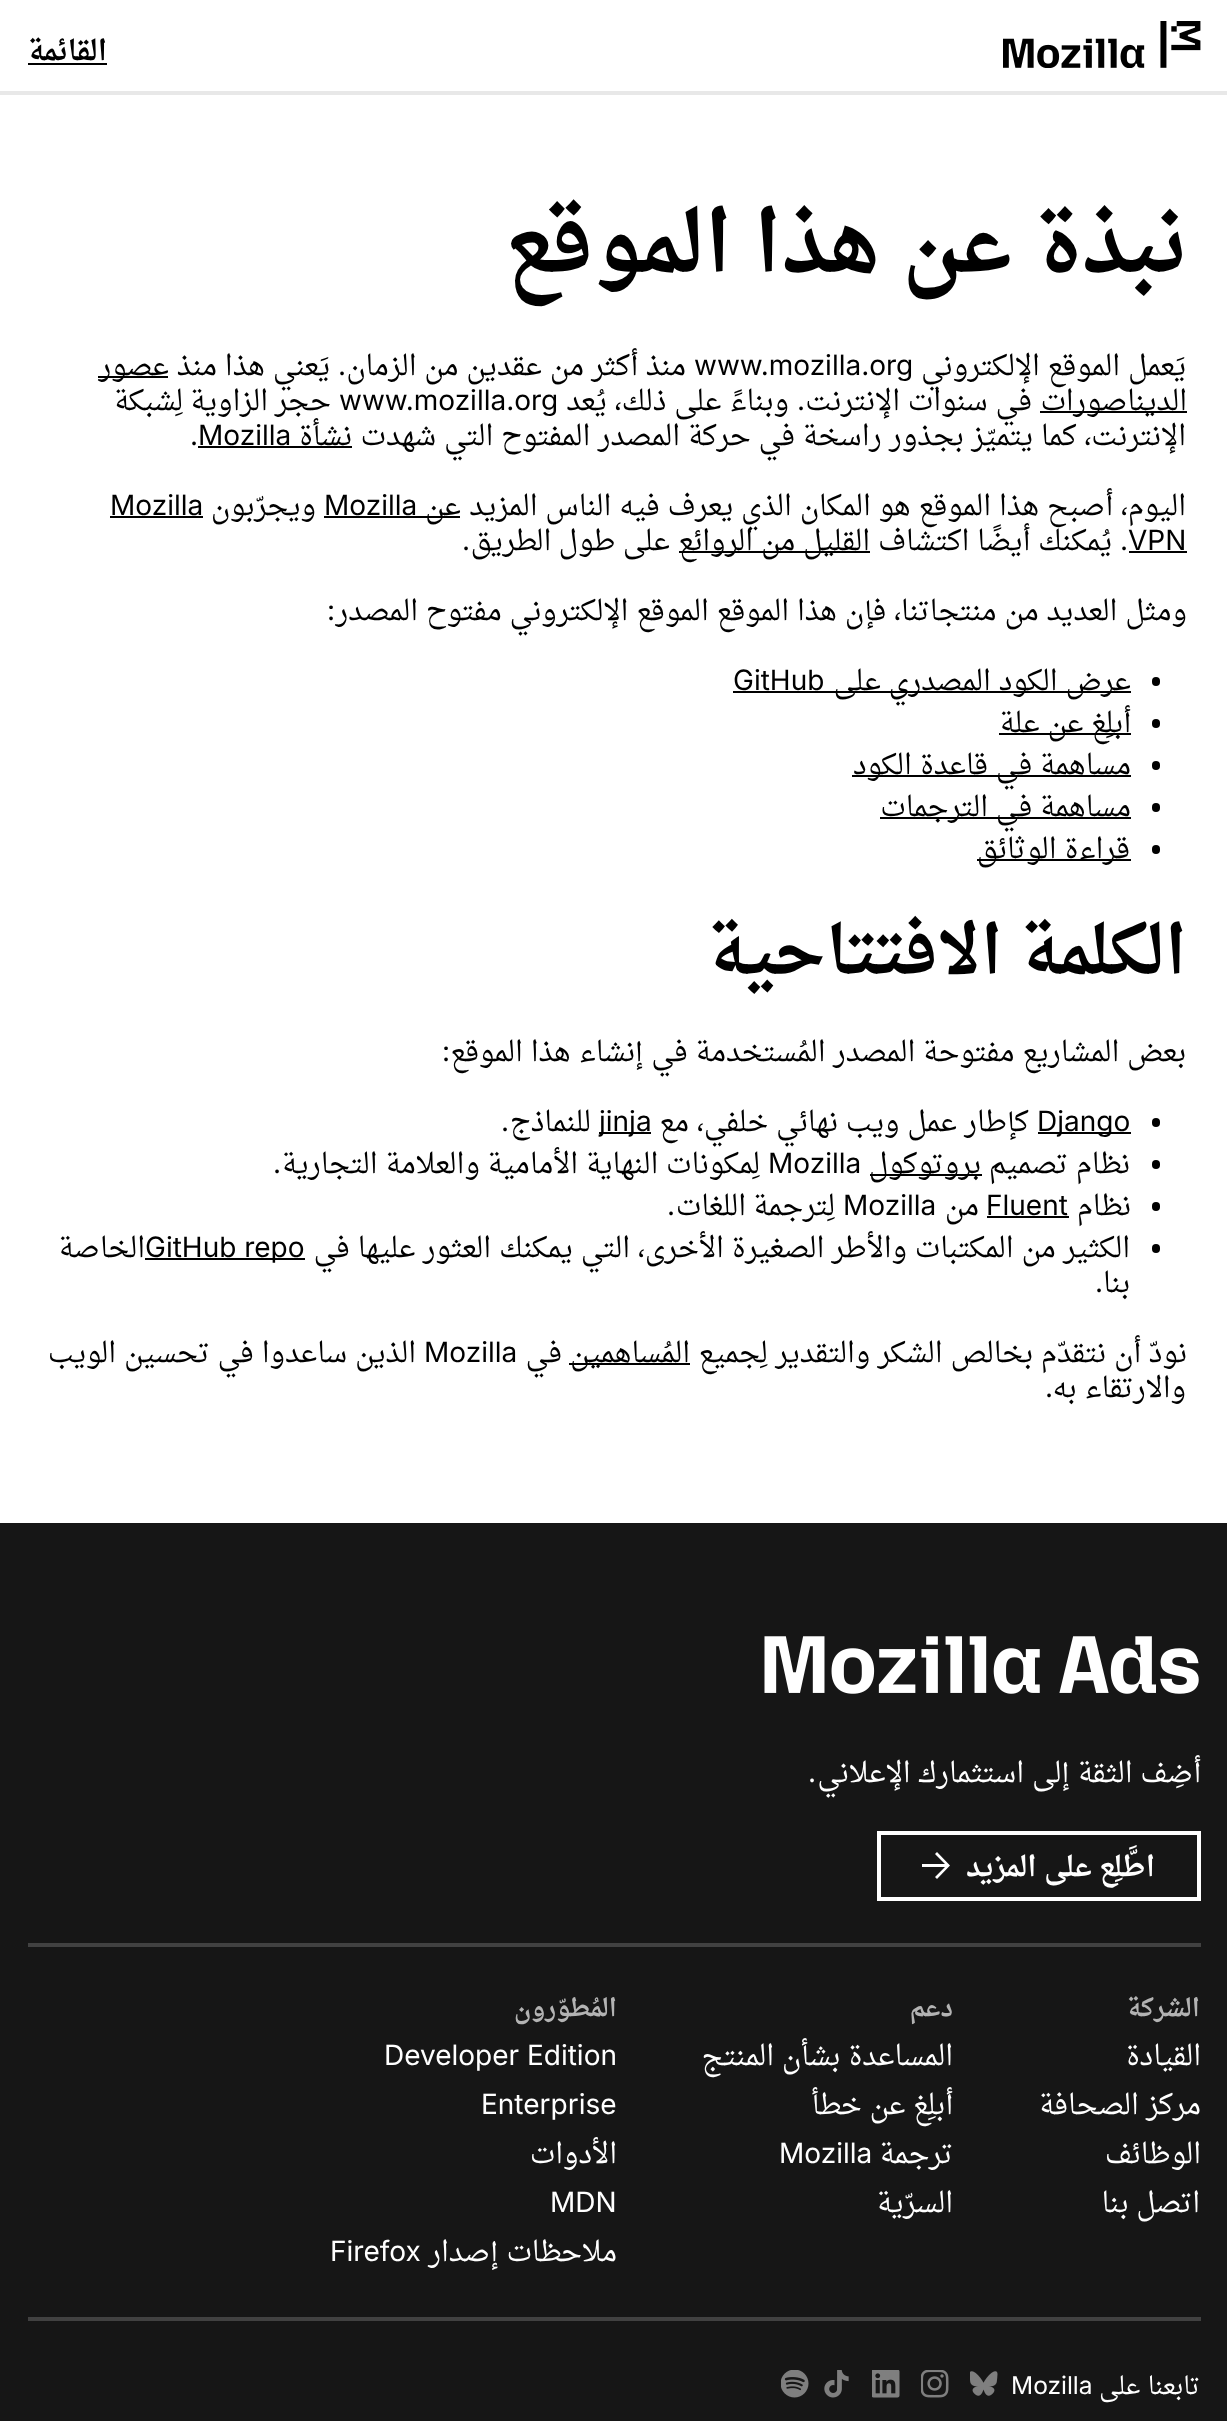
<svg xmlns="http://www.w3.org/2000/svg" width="1227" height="2421">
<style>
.a{font:bold 28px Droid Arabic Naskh;direction:rtl;fill:#000}
.b{font:bold 84px Droid Arabic Naskh;direction:rtl;fill:#000}
.c{font:28px Droid Arabic Naskh;direction:rtl;fill:#000}
.d{font:28px Inter;fill:#000}
.e{font:28px Inter;direction:rtl;fill:#000}
.f{font:bold 66.5px Droid Arabic Naskh;direction:rtl;fill:#000}
.g{font:28px Droid Arabic Naskh;direction:rtl;fill:#fff}
.h{font:28px Inter;direction:rtl;fill:#fff}
.i{font:bold 28px Droid Arabic Naskh;direction:rtl;fill:#fff}
.j{font:bold 24.5px Droid Arabic Naskh;direction:rtl;fill:#b3b3b3}
.k{font:28px Inter;fill:#fff}
.l{font:24.5px Droid Arabic Naskh;direction:rtl;fill:#fff}
.m{font:24.5px Inter;fill:#fff}
</style>
<rect width="100%" height="100%" fill="#fff"/>
<path fill="#e8e8e8" d="M0 91h1227v4H0z"/>
<image href="1.png" x="1003" y="21" width="198" height="47"/>
<path fill="#000" d="M28 63h79v2H28z"/>
<path fill="#000" d="M98 376h70v2H98z"/>
<path fill="#000" d="M1040 411h147v2H1040z"/>
<path fill="#000" d="M198 446h154v2H198z"/>
<path fill="#000" d="M324 516h136v2H324z"/>
<path fill="#000" d="M110 516h93v2H110z"/>
<path fill="#000" d="M1129 551h58v2H1129z"/>
<path fill="#000" d="M679 551h191v2H679z"/>
<rect fill="#000" x="1152" y="677" width="8" height="9" rx="4"/>
<path fill="#000" d="M733 691h398v2H733z"/>
<rect fill="#000" x="1152" y="719" width="8" height="9" rx="4"/>
<path fill="#000" d="M999 733h132v2H999z"/>
<rect fill="#000" x="1152" y="761" width="8" height="9" rx="4"/>
<path fill="#000" d="M852 775h279v2H852z"/>
<rect fill="#000" x="1152" y="803" width="8" height="9" rx="4"/>
<path fill="#000" d="M880 817h251v2H880z"/>
<rect fill="#000" x="1152" y="845" width="8" height="9" rx="4"/>
<path fill="#000" d="M977 859h154v2H977z"/>
<rect fill="#000" x="1152" y="1118" width="8" height="9" rx="4"/>
<path fill="#000" d="M1038 1132h93v2H1038z"/>
<path fill="#000" d="M599 1132h52v2H599z"/>
<rect fill="#000" x="1152" y="1160" width="8" height="9" rx="4"/>
<path fill="#000" d="M870 1174h112v2H870z"/>
<rect fill="#000" x="1152" y="1202" width="8" height="9" rx="4"/>
<path fill="#000" d="M987 1216h82v2H987z"/>
<rect fill="#000" x="1152" y="1244" width="8" height="9" rx="4"/>
<path fill="#000" d="M145 1258h160v2H145z"/>
<path fill="#000" d="M569 1363h121v2H569z"/>
<path fill="#161616" d="M0 1523h1227v898H0z"/>
<path fill="#414141" d="M28 1943h1173v4H28z"/>
<image href="2.png" x="764" y="1636" width="435" height="58"/>
<path fill="none" stroke="#fff" stroke-width="4" d="M879 1833h320v66H879z"/>
<path fill="#fff" d="M935 1854l10 10h-23v3h23l-10 10l2 2l13-13.5l-13-13.5z"/>
<path fill="#414141" d="M28 2317h1173v4H28z"/>
<image href="3.png" x="970" y="2371" width="28" height="25"/>
<image href="4.png" x="921" y="2370" width="28" height="28"/>
<image href="5.png" x="872" y="2370" width="28" height="28"/>
<image href="6.png" x="824" y="2370" width="25" height="28"/>
<image href="7.png" x="781" y="2370" width="28" height="28"/>
<text class="a" x="107" y="60">القائمة</text>
<text class="b" x="1187" y="271" word-spacing="-0.5">نبذة عن هذا الموقع</text>
<text class="c" x="1186" y="375" word-spacing="0.5">يَعمل الموقع الإلكتروني</text>
<text class="d" x="694" y="375">www.mozilla.org</text>
<text class="c" x="686" y="375" word-spacing="0.5">منذ أكثر من عقدين من الزمان</text>
<text class="e" x="346" y="375">.</text>
<text class="c" x="330" y="375" word-spacing="0.5">يَعني هذا منذ</text>
<text class="c" x="169" y="375">عصور</text>
<text class="c" x="1187" y="410">الديناصورات</text>
<text class="c" x="1032" y="410" word-spacing="0.5">في سنوات الإنترنت</text>
<text class="e" x="805" y="410">.</text>
<text class="c" x="789" y="410" word-spacing="0.5">وبناءً على ذلك، يُعد</text>
<text class="d" x="339" y="410">www.mozilla.org</text>
<text class="c" x="331" y="410">حجر الزاوية لِشبكة</text>
<text class="c" x="1186" y="445" word-spacing="0.5">الإنترنت، كما يتميّز بجذور راسخة في حركة المصدر المفتوح التي شهدت</text>
<text class="c" x="352" y="445">نشأة</text>
<text class="d" x="198" y="445">Mozilla</text>
<text class="d" x="190" y="445">.</text>
<text class="c" x="1186" y="515" word-spacing="0.5">اليوم، أصبح هذا الموقع هو المكان الذي يعرف فيه الناس المزيد</text>
<text class="c" x="461" y="515">عن</text>
<text class="d" x="324" y="515">Mozilla</text>
<text class="c" x="316" y="515">ويجرّبون</text>
<text class="d" x="110" y="515">Mozilla</text>
<text class="d" x="1128" y="550">VPN</text>
<text class="e" x="1128" y="550">.</text>
<text class="c" x="1112" y="550" word-spacing="0.5">يُمكنك أيضًا اكتشاف</text>
<text class="c" x="870" y="550" word-spacing="0.5">القليل من الروائع</text>
<text class="c" x="670" y="550">على طول الطريق</text>
<text class="e" x="470" y="550">.</text>
<text class="c" x="1187" y="620" word-spacing="0.5">ومثل العديد من منتجاتنا، فإن هذا الموقع الموقع الإلكتروني مفتوح المصدر</text>
<text class="e" x="335" y="620">:</text>
<text class="c" x="1131" y="690" word-spacing="0.5">عرض الكود المصدري على</text>
<text class="d" x="733" y="690">GitHub</text>
<text class="c" x="1131" y="732" word-spacing="0.5">أبلِغ عن علة</text>
<text class="c" x="1131" y="774" word-spacing="0.5">مساهمة في قاعدة الكود</text>
<text class="c" x="1131" y="816" word-spacing="0.5">مساهمة في الترجمات</text>
<text class="c" x="1130" y="858" word-spacing="0.5">قراءة الوثائق</text>
<text class="f" x="1187" y="973">الكلمة الافتتاحية</text>
<text class="c" x="1186" y="1061" word-spacing="0.5">بعض المشاريع مفتوحة المصدر المُستخدمة في إنشاء هذا الموقع</text>
<text class="e" x="450" y="1061">:</text>
<text class="d" x="1037" y="1131">Django</text>
<text class="c" x="1029" y="1131" word-spacing="0.5">كإطار عمل ويب نهائي خلفي، مع</text>
<text class="d" x="599" y="1131">jinja</text>
<text class="c" x="591" y="1131">للنماذج</text>
<text class="e" x="509" y="1131">.</text>
<text class="c" x="1130" y="1173" word-spacing="0.5">نظام تصميم</text>
<text class="c" x="981" y="1173">بروتوكول</text>
<text class="d" x="768" y="1173">Mozilla</text>
<text class="c" x="760" y="1173" word-spacing="0.5">لِمكونات النهاية الأمامية والعلامة التجارية</text>
<text class="e" x="281" y="1173">.</text>
<text class="c" x="1131" y="1215">نظام</text>
<text class="d" x="986" y="1215">Fluent</text>
<text class="c" x="979" y="1215">من</text>
<text class="d" x="843" y="1215">Mozilla</text>
<text class="c" x="835" y="1215">لِترجمة اللغات</text>
<text class="e" x="675" y="1215">.</text>
<text class="c" x="1130" y="1257" word-spacing="0.5">الكثير من المكتبات والأطر الصغيرة الأخرى، التي يمكنك العثور عليها في</text>
<text class="d" x="145" y="1257">GitHub repo</text>
<text class="c" x="145" y="1257">الخاصة</text>
<text class="c" x="1130" y="1292">بنا</text>
<text class="e" x="1103" y="1292">.</text>
<text class="c" x="1187" y="1362" word-spacing="0.5">نودّ أن نتقدّم بخالص الشكر والتقدير لِجميع</text>
<text class="c" x="690" y="1362">المُساهمين</text>
<text class="c" x="562" y="1362">في</text>
<text class="d" x="424" y="1362">Mozilla</text>
<text class="c" x="416" y="1362" word-spacing="0.5">الذين ساعدوا في تحسين الويب</text>
<text class="c" x="1186" y="1397" word-spacing="0.5">والارتقاء به</text>
<text class="e" x="1053" y="1397">.</text>
<text class="g" x="1201" y="1782" word-spacing="0.5">أضِف الثقة إلى استثمارك الإعلاني</text>
<text class="h" x="816" y="1782">.</text>
<text class="i" x="1155" y="1876">اطَّلِع على المزيد</text>
<text class="j" x="1200" y="2016">الشركة</text>
<text class="g" x="1201" y="2065">القيادة</text>
<text class="g" x="1201" y="2114" word-spacing="0.5">مركز الصحافة</text>
<text class="g" x="1201" y="2163">الوظائف</text>
<text class="g" x="1200" y="2212" word-spacing="0.5">اتصل بنا</text>
<text class="j" x="953" y="2016">دعم</text>
<text class="g" x="953" y="2065" word-spacing="0.5">المساعدة بشأن المنتج</text>
<text class="g" x="953" y="2114" word-spacing="0.5">أبلِغ عن خطأ</text>
<text class="g" x="953" y="2163">ترجمة</text>
<text class="k" x="779" y="2163">Mozilla</text>
<text class="g" x="953" y="2212">السرّية</text>
<text class="j" x="617" y="2016">المُطوّرون</text>
<text class="k" x="384" y="2065">Developer Edition</text>
<text class="k" x="481" y="2114">Enterprise</text>
<text class="g" x="617" y="2163">الأدوات</text>
<text class="k" x="550" y="2212">MDN</text>
<text class="g" x="617" y="2261" word-spacing="0.5">ملاحظات إصدار</text>
<text class="k" x="330" y="2261">Firefox</text>
<text class="l" x="1200" y="2394" word-spacing="1">تابعنا على</text>
<text class="m" x="1011" y="2394">Mozilla</text>
</svg>
